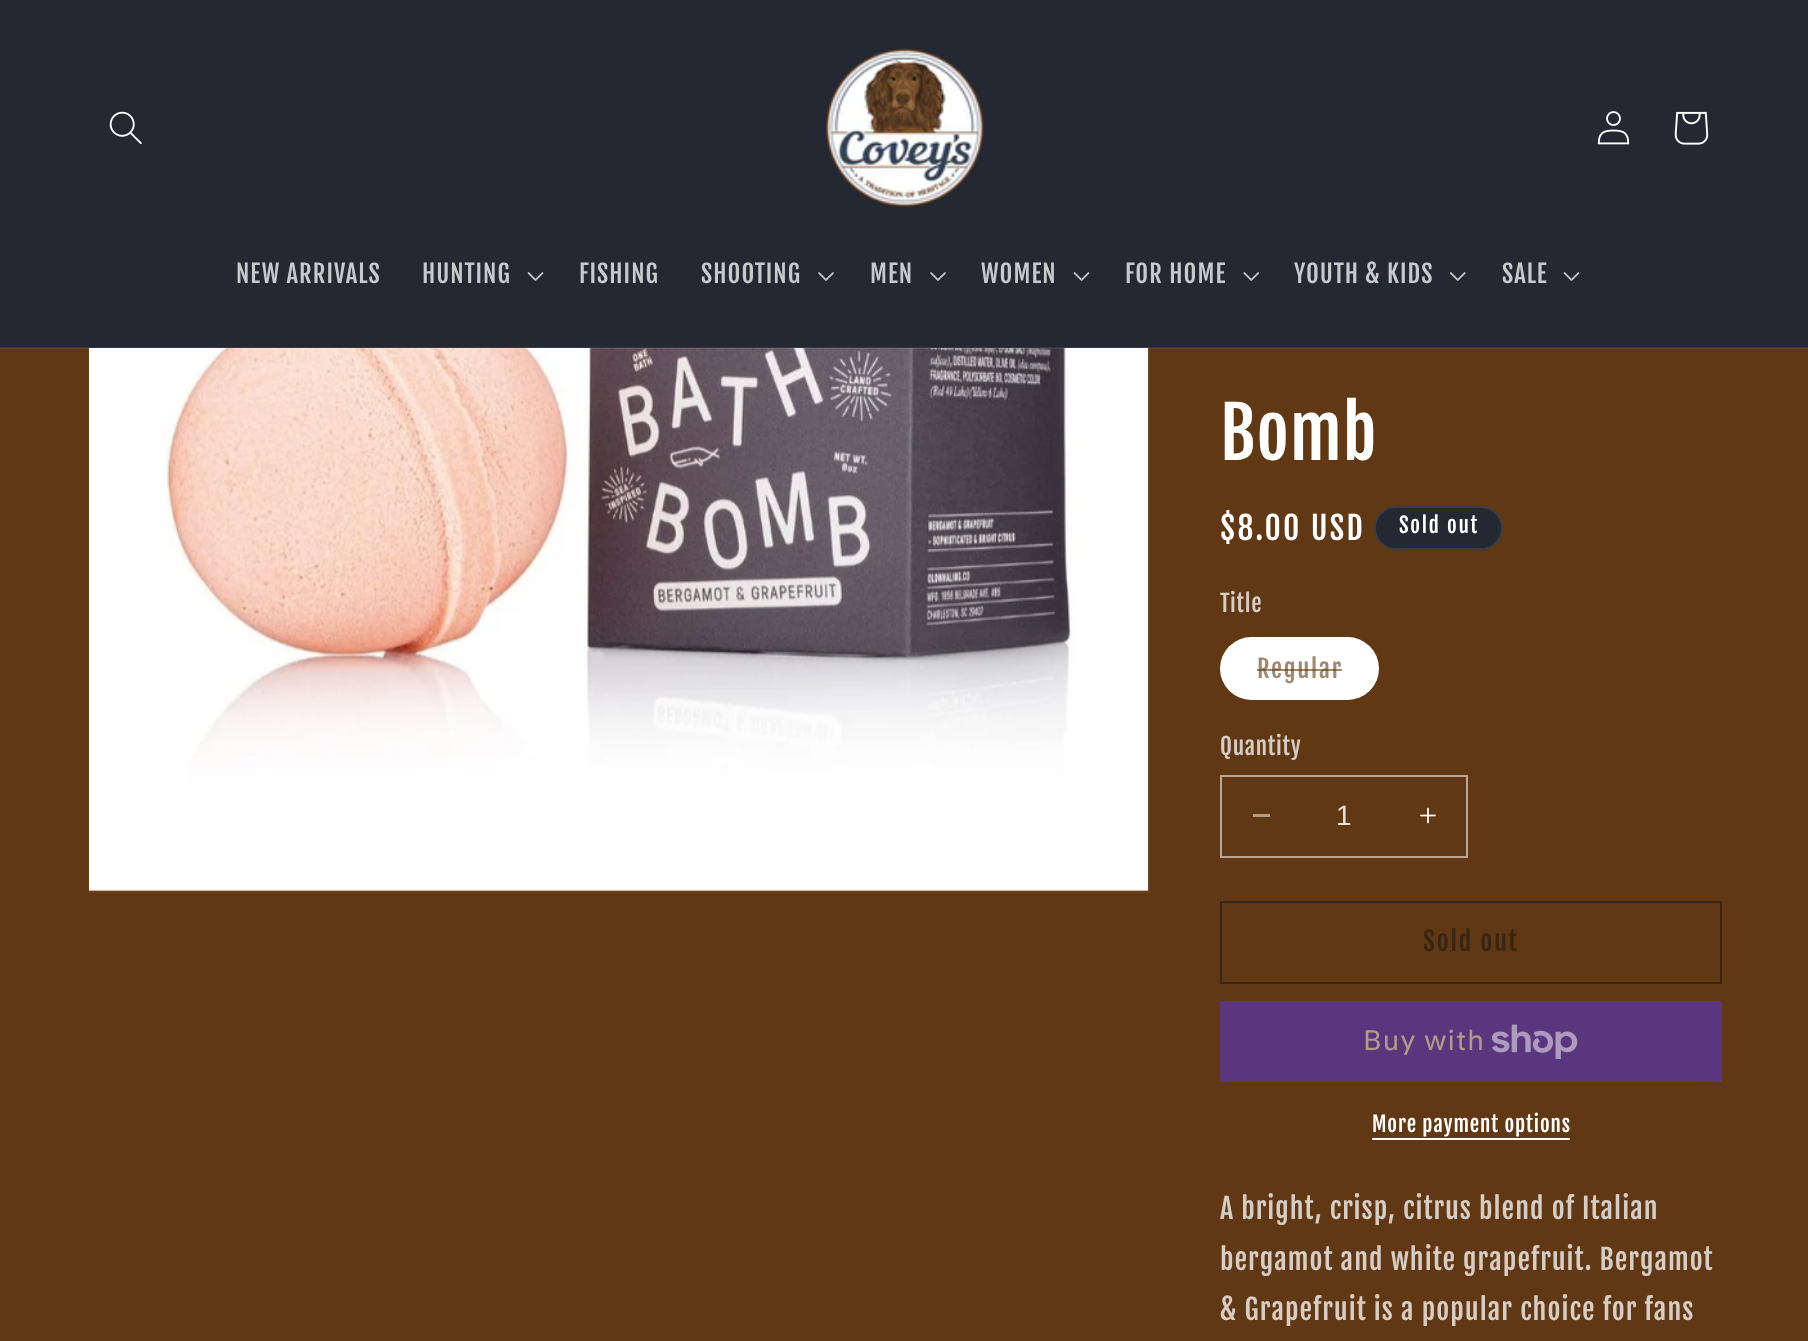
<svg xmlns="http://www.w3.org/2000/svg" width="1808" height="1341">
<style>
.a{font:24.5px Fjalla One;letter-spacing:1.05px;fill:#c8c9cc}
.b{font:70px Fjalla One;letter-spacing:1.05px;fill:#fff}
.c{font:31.5px Fjalla One;letter-spacing:2.25px;fill:#fff}
.d{font:21px Fjalla One;letter-spacing:1.75px;fill:#fff}
.e{font:23px Fjalla One;letter-spacing:0.75px;fill:#d7cdc4}
.f{font:24.5px Fjalla One;letter-spacing:1.75px;fill:#a08871}
.g{font:28px Liberation Sans;fill:#e7e1dc}
.h{font:26px Fjalla One;letter-spacing:1.75px;fill:#392513}
.i{font:28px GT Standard;letter-spacing:1.05px;fill:#b09c89}
.j{font:21px Fjalla One;letter-spacing:0.9px;fill:#fff}
.k{font:28px Fjalla One;letter-spacing:1.05px;fill:#d7cdc4}
</style>
<rect width="100%" height="100%" fill="#603813"/>
<path fill="none" stroke="#68421f" stroke-width="2" d="M89 96h1060v796H89z"/>
<path fill="#242833" d="M0 0h1808v348H0z"/>
<image href="9.png" x="89" y="348" width="1059" height="543"/>
<path fill="#ffffff14" d="M0 347h1808v2H0z"/>
<image href="1.png" x="109" y="111" width="33" height="34"/>
<image href="2.png" x="826" y="48" width="158" height="159"/>
<image href="3.png" x="1597" y="111" width="33" height="34"/>
<image href="4.png" x="1674" y="111" width="35" height="34"/>
<image href="5.png" x="527" y="272" width="17" height="9"/>
<image href="6.png" x="818" y="272" width="16" height="9"/>
<image href="6.png" x="930" y="272" width="16" height="9"/>
<image href="5.png" x="1073" y="272" width="17" height="9"/>
<image href="7.png" x="1243" y="272" width="16" height="9"/>
<image href="8.png" x="1450" y="272" width="16" height="9"/>
<image href="5.png" x="1563" y="272" width="17" height="9"/>
<rect fill="#242833" x="1374" y="506" width="129" height="44" rx="22"/>
<rect fill="none" stroke="#ffffff1a" stroke-width="2" x="1375" y="507" width="127" height="42" rx="21"/>
<rect fill="#fff" x="1220" y="637" width="159" height="63" rx="31.5"/>
<rect fill="none" stroke="#ffffff1a" stroke-width="2" x="1221" y="638" width="157" height="61" rx="30.5"/>
<path fill="#b09c89" d="M1253 814h17v3H1253z"/>
<image href="10.png" x="1420" y="807" width="16" height="17"/>
<path fill="none" stroke="#b7a595" stroke-width="2" d="M1221 776h246v81H1221z"/>
<path fill="none" stroke="#392513" stroke-width="2" d="M1221 902h500v81H1221z"/>
<path fill="#5a367f" d="M1220 1001h502v81H1220z"/>
<image href="11.png" x="1492" y="1024" width="86" height="35"/>
<path fill="#fff" d="M1372 1138h198v2H1372z"/>
<text class="a" x="236" y="283">NEW ARRIVALS</text>
<text class="a" x="422" y="283">HUNTING</text>
<text class="a" x="579" y="283">FISHING</text>
<text class="a" x="701" y="283">SHOOTING</text>
<text class="a" x="870" y="283">MEN</text>
<text class="a" x="981" y="283">WOMEN</text>
<text class="a" x="1125" y="283">FOR HOME</text>
<text class="a" x="1294" y="283">YOUTH &amp; KIDS</text>
<text class="a" x="1502" y="283">SALE</text>
<text class="b" x="1220" y="460">Bomb</text>
<text class="c" x="1220" y="540">$8.00 USD</text>
<text class="d" x="1399" y="533">Sold out</text>
<text class="e" x="1220" y="612">Title</text>
<text class="f" x="1257" y="678">Regular</text>
<path fill="#60381399" d="M1257 669h85v2H1257z"/>
<text class="e" x="1220" y="755">Quantity</text>
<text class="g" x="1336" y="825">1</text>
<text class="h" x="1423" y="951">Sold out</text>
<text class="i" x="1363" y="1050">Buy with</text>
<text class="j" x="1372" y="1132">More payment options</text>
<text class="k" x="1220" y="1219">A bright, crisp, citrus blend of Italian</text>
<text class="k" x="1220" y="1270">bergamot and white grapefruit. Bergamot</text>
<text class="k" x="1220" y="1320">&amp; Grapefruit is a popular choice for fans</text>
</svg>
